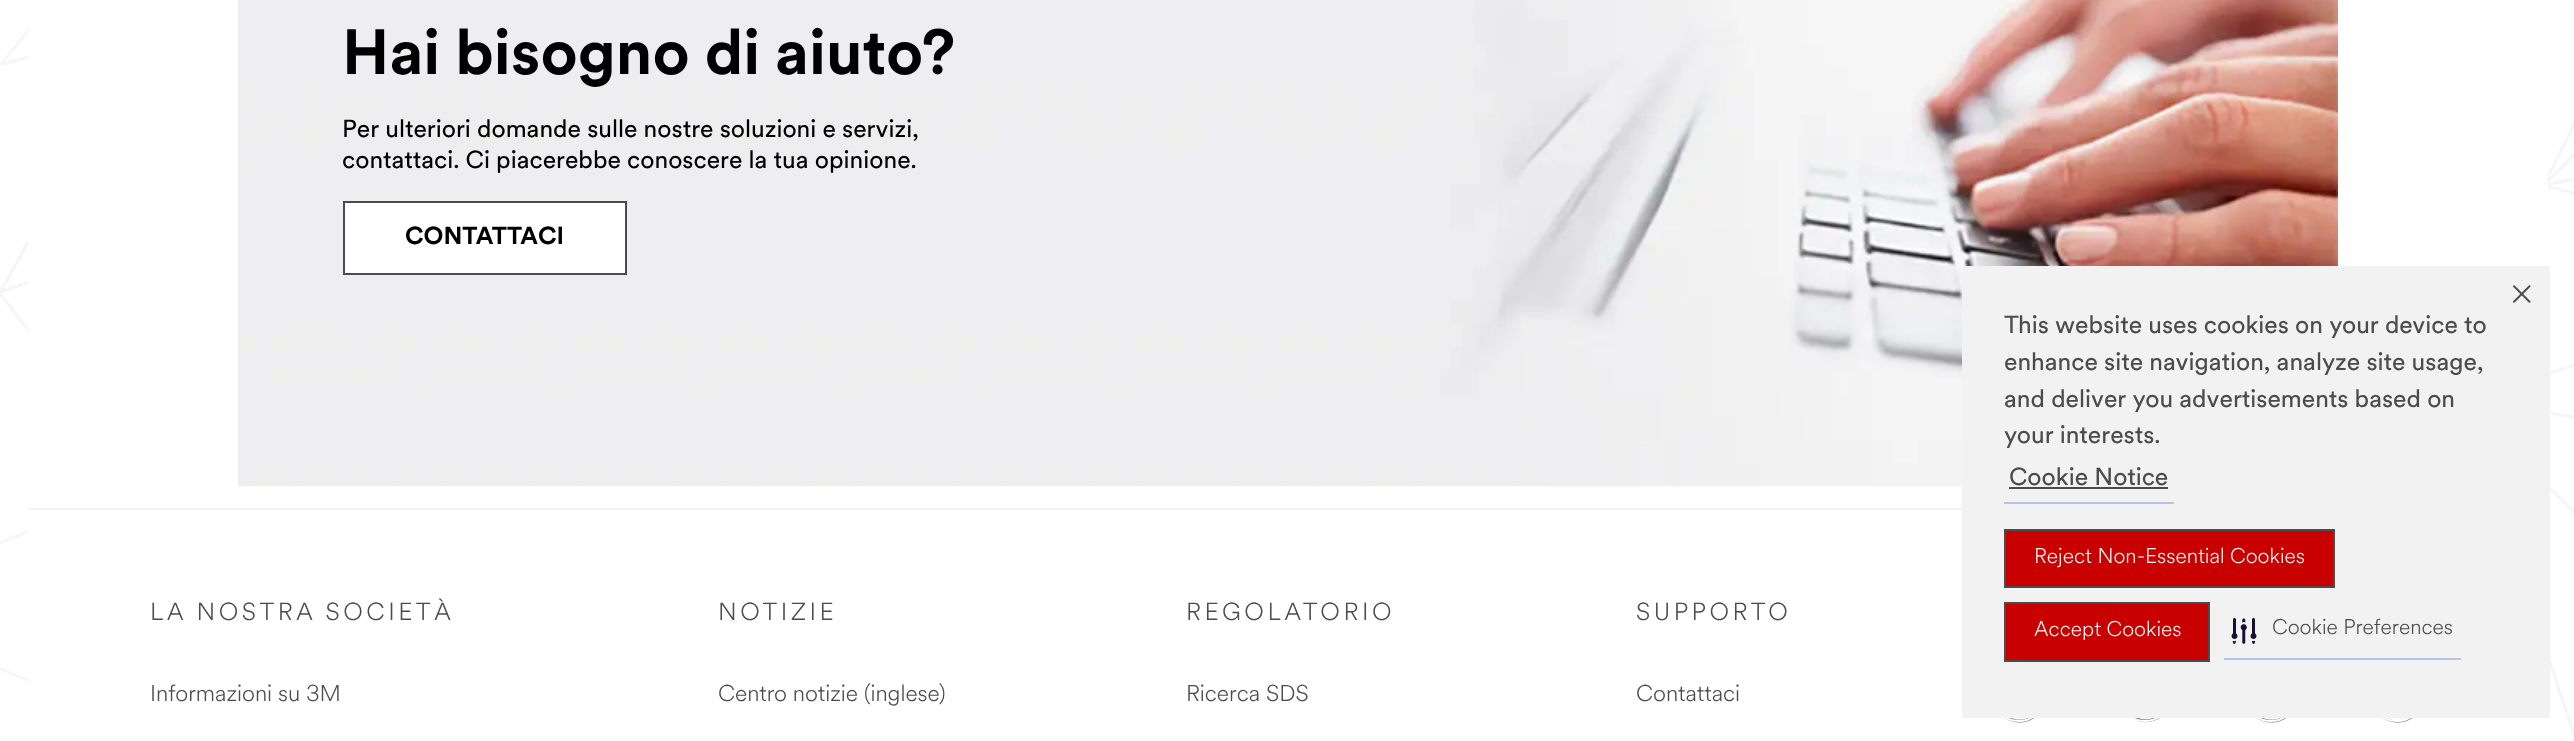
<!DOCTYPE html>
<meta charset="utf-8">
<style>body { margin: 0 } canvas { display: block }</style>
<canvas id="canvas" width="2574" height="741"></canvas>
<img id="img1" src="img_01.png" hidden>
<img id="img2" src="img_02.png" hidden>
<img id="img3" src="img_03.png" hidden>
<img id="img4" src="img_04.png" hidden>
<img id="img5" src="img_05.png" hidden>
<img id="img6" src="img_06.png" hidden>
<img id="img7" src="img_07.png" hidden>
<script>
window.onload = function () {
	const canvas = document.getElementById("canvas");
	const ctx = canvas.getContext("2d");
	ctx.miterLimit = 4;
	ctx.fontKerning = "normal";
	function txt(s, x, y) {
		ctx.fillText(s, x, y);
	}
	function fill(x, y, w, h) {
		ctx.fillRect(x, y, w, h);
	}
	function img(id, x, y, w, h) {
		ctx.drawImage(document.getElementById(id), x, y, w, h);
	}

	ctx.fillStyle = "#FFFFFF";
	fill(0, 0, 2574, 741);
	img("img1", 0, 27, 2574, 714);
	fill(28, 27, 2520, 714);
	img("img2", 238, 0, 2100, 487);
	ctx.beginPath();
	ctx.rect(344, 202, 282, 72);
	ctx.fill();
	ctx.strokeStyle = "#4B4B4B";
	ctx.lineWidth = 2;
	ctx.stroke();
	ctx.fillStyle = "#F2F2F2";
	fill(28, 508, 1934, 2);
	img("img3", 2005, 718, 29, 5);
	ctx.fillStyle = "#FFFFFF";
	ctx.beginPath();
	ctx.moveTo(2019, 722);
	ctx.bezierCurveTo(1986, 722, 1986, 671, 2019, 671);
	ctx.bezierCurveTo(2025, 671, 2030, 673, 2035, 676);
	ctx.bezierCurveTo(2054, 691, 2044, 722, 2019, 722);
	ctx.closePath();
	ctx.moveTo(2019, 673);
	ctx.bezierCurveTo(1988, 673, 1989, 720, 2019, 720);
	ctx.bezierCurveTo(2050, 720, 2051, 673, 2019, 673);
	ctx.closePath();
	ctx.fill();
	img("img4", 2131, 718, 29, 5);
	ctx.beginPath();
	ctx.moveTo(2145, 722);
	ctx.bezierCurveTo(2112, 722, 2112, 671, 2145, 671);
	ctx.bezierCurveTo(2151, 671, 2156, 673, 2161, 676);
	ctx.bezierCurveTo(2180, 691, 2170, 722, 2145, 722);
	ctx.closePath();
	ctx.moveTo(2145, 673);
	ctx.bezierCurveTo(2114, 673, 2115, 720, 2145, 720);
	ctx.bezierCurveTo(2176, 720, 2177, 673, 2145, 673);
	ctx.closePath();
	ctx.fill();
	img("img3", 2257, 718, 29, 5);
	ctx.beginPath();
	ctx.moveTo(2271, 722);
	ctx.bezierCurveTo(2238, 722, 2238, 671, 2271, 671);
	ctx.bezierCurveTo(2277, 671, 2282, 673, 2287, 676);
	ctx.bezierCurveTo(2306, 691, 2296, 722, 2271, 722);
	ctx.closePath();
	ctx.moveTo(2271, 673);
	ctx.bezierCurveTo(2240, 673, 2241, 720, 2271, 720);
	ctx.bezierCurveTo(2302, 720, 2303, 673, 2271, 673);
	ctx.closePath();
	ctx.fill();
	img("img5", 2382, 718, 31, 5);
	ctx.beginPath();
	ctx.moveTo(2397, 722);
	ctx.bezierCurveTo(2364, 722, 2364, 671, 2397, 671);
	ctx.bezierCurveTo(2403, 671, 2408, 673, 2413, 676);
	ctx.bezierCurveTo(2432, 691, 2422, 722, 2397, 722);
	ctx.closePath();
	ctx.moveTo(2397, 673);
	ctx.bezierCurveTo(2366, 673, 2367, 720, 2397, 720);
	ctx.bezierCurveTo(2428, 720, 2429, 673, 2397, 673);
	ctx.closePath();
	ctx.fill();
	ctx.fillStyle = "#F2F2F2";
	fill(1962, 266, 588, 452);
	ctx.fillStyle = "#B6C2E9";
	fill(2004, 502, 170, 2);
	ctx.fillStyle = "#4B4B4B";
	fill(2009, 487, 159, 2);
	img("img6", 2513, 285, 18, 18);
	ctx.fillStyle = "#C80000";
	ctx.beginPath();
	ctx.rect(2005, 530, 329, 57);
	ctx.fill();
	ctx.stroke();
	ctx.beginPath();
	ctx.rect(2005, 603, 204, 58);
	ctx.fill();
	ctx.stroke();
	ctx.fillStyle = "#B6C2E9";
	fill(2224, 658, 237, 2);
	img("img7", 2231, 618, 26, 26);
	ctx.font = "bold 63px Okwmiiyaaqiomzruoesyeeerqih";
	ctx.fillStyle = "#000000";
	txt("Hai bisogno di aiuto?", 342, 74);
	ctx.font = "24.5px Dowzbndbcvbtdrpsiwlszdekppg";
	txt("Per ulteriori domande sulle nostre soluzioni e servizi,", 342, 137);
	txt("contattaci. Ci piacerebbe conoscere la tua opinione.", 342, 168);
	ctx.font = "bold 24.5px Okwmiiyaaqiomzruoesyeeerqih";
	txt("CONTATTACI", 405, 244);
	ctx.letterSpacing = "3.5px";
	ctx.font = "300 24.5px '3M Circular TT'";
	ctx.fillStyle = "#4B4B4B";
	txt("LA NOSTRA SOCIETÀ", 150, 620);
	ctx.letterSpacing = "0px";
	ctx.font = "300 22.75px '3M Circular TT'";
	txt("Informazioni su 3M", 150, 701);
	ctx.letterSpacing = "3.5px";
	ctx.font = "300 24.5px '3M Circular TT'";
	txt("NOTIZIE", 718, 620);
	ctx.letterSpacing = "0px";
	ctx.font = "300 22.75px '3M Circular TT'";
	txt("Centro notizie (inglese)", 718, 701);
	ctx.letterSpacing = "3.5px";
	ctx.font = "300 24.5px '3M Circular TT'";
	txt("REGOLATORIO", 1186, 620);
	ctx.letterSpacing = "0px";
	ctx.font = "300 22.75px '3M Circular TT'";
	txt("Ricerca SDS", 1186, 701);
	ctx.letterSpacing = "3.5px";
	ctx.font = "300 24.5px '3M Circular TT'";
	txt("SUPPORTO", 1636, 620);
	ctx.letterSpacing = "0px";
	ctx.font = "300 22.75px '3M Circular TT'";
	txt("Contattaci", 1636, 701);
	ctx.font = "24.5px Dowzbndbcvbtdrpsiwlszdekppg";
	txt("This website uses cookies on your device to", 2004, 333);
	txt("enhance site navigation, analyze site usage,", 2004, 370);
	txt("and deliver you advertisements based on", 2004, 407);
	txt("your interests.", 2004, 443);
	txt("Cookie Notice", 2009, 485);
	ctx.font = "300 21px '3M Circular TT'";
	ctx.fillStyle = "#F2F2F2";
	txt("Reject Non-Essential Cookies", 2034, 563);
	txt("Accept Cookies", 2034, 636);
	ctx.fillStyle = "#4B4B4B";
	txt("Cookie Preferences", 2272, 634);
};
</script>
